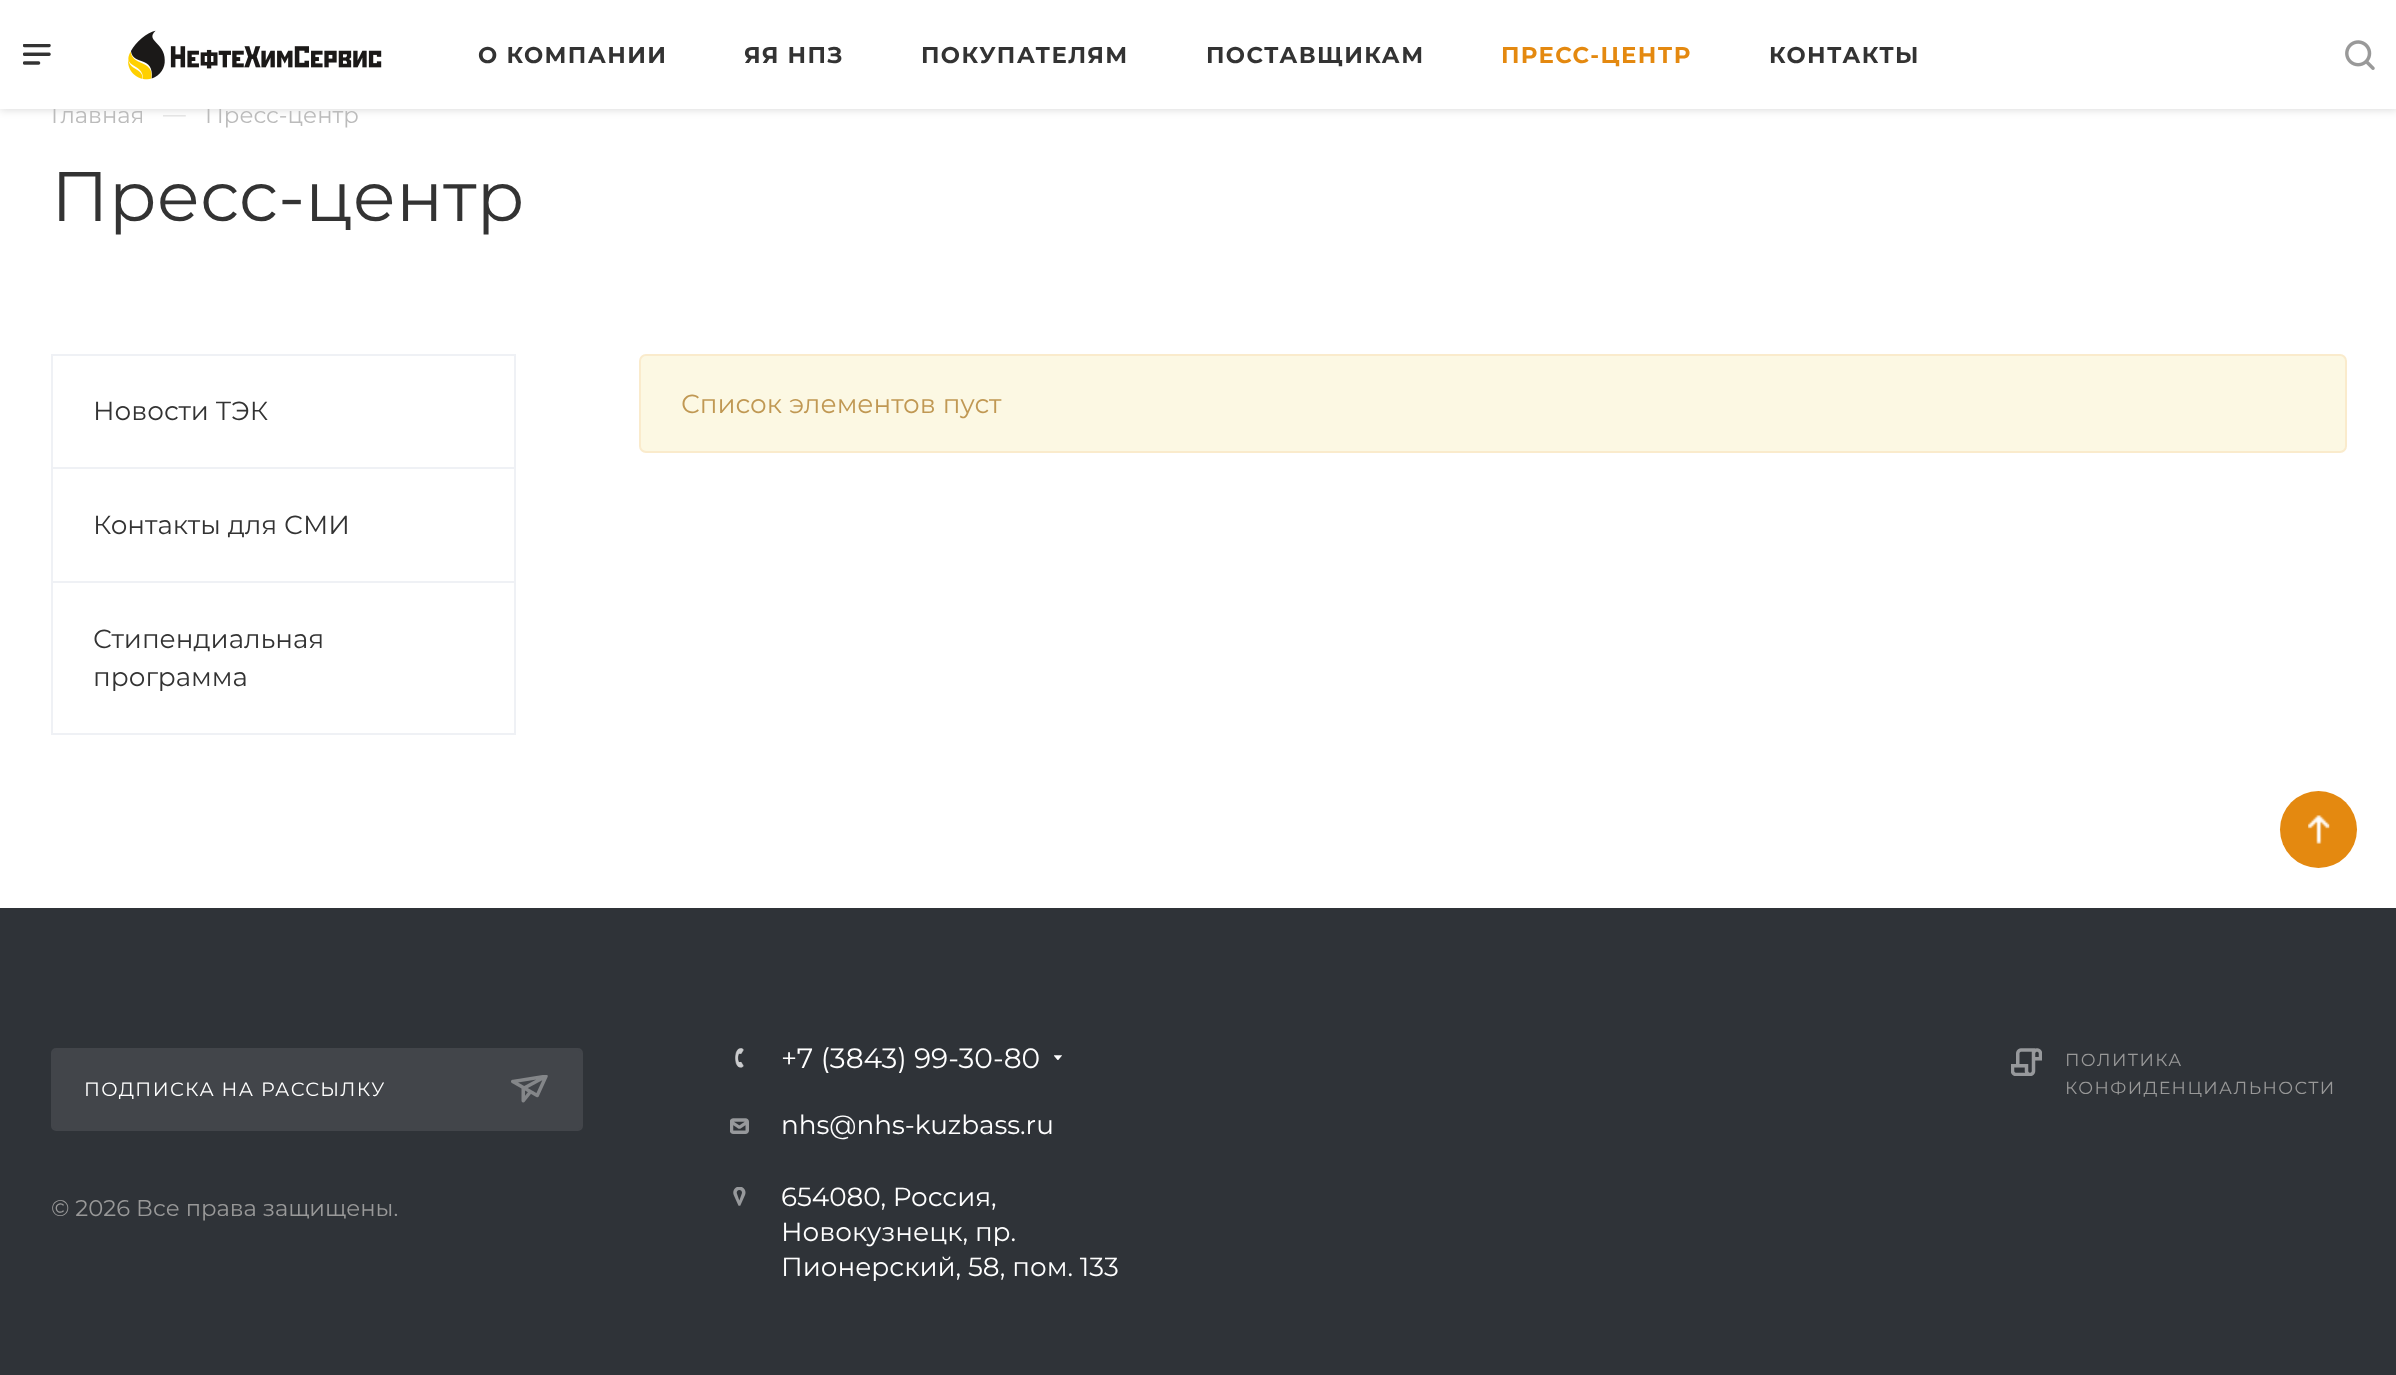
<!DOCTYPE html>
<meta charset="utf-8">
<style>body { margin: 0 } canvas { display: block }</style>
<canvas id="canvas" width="2396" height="1375"></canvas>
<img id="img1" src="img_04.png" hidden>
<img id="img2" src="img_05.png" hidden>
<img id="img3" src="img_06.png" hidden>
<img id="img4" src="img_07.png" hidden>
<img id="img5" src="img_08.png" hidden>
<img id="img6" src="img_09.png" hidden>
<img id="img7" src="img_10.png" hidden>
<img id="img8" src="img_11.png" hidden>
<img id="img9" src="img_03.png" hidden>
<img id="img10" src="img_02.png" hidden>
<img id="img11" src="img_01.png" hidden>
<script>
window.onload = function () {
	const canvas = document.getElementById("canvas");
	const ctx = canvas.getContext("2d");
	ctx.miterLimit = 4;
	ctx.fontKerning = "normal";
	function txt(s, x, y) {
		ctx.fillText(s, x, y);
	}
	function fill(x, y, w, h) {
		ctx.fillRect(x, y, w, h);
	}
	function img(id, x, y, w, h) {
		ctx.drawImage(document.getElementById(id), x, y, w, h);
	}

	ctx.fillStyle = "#FFFFFF";
	fill(0, 0, 2396, 1375);
	ctx.fillStyle = "rgba(0, 0, 0, 0.14)";
	ctx.filter = "blur(4.5px)";
	ctx.beginPath();
	ctx.rect(0, 2, 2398, 108);
	ctx.fill();
	ctx.filter = "none";
	ctx.strokeStyle = "#EFF1F5";
	ctx.lineWidth = 2;
	ctx.strokeRect(52, 355, 463, 379);
	ctx.fillStyle = "#EFF1F5";
	fill(53, 467, 462, 2);
	fill(53, 581, 462, 2);
	ctx.fillStyle = "#FCF8E3";
	ctx.beginPath();
	ctx.roundRect(640, 355, 1706, 97, 6);
	ctx.fill();
	ctx.strokeStyle = "#FAEBCC";
	ctx.stroke();
	ctx.fillStyle = "#E48910";
	ctx.beginPath();
	ctx.arc(2318.5, 829.5, 38.5, 0, Math.PI * 2);
	ctx.fill();
	img("img1", 2308, 815, 22, 29);
	ctx.fillStyle = "#2F3338";
	fill(0, 908, 2396, 467);
	img("img2", 735, 1048, 9, 20);
	img("img3", 735, 1048, 8, 20);
	img("img4", 1054, 1055, 8, 5);
	img("img5", 730, 1118, 19, 16);
	img("img6", 733, 1187, 13, 19);
	img("img7", 2011, 1048, 31, 28);
	ctx.fillStyle = "#42454A";
	ctx.beginPath();
	ctx.roundRect(52, 1049, 530, 81, 4);
	ctx.fill();
	ctx.strokeStyle = "#42454A";
	ctx.stroke();
	img("img8", 511, 1075, 37, 28);
	ctx.font = "22.75px Montserrat";
	ctx.fillStyle = "#BBBBBB";
	txt("Главная", 51, 123);
	ctx.fillStyle = "#DDDDDD";
	txt("—", 163, 122);
	ctx.fillStyle = "#BBBBBB";
	txt("Пресс-центр", 205, 123);
	ctx.fillStyle = "#FFFFFF";
	fill(0, 0, 2396, 109);
	img("img9", 2345, 40, 30, 30);
	ctx.letterSpacing = "1.4px";
	ctx.font = "bold 22.75px Montserrat";
	ctx.fillStyle = "#333333";
	txt("КОНТАКТЫ", 1769, 63);
	ctx.fillStyle = "#E48910";
	txt("ПРЕСС-ЦЕНТР", 1501, 63);
	ctx.fillStyle = "#333333";
	txt("ПОСТАВЩИКАМ", 1206, 63);
	txt("ПОКУПАТЕЛЯМ", 921, 63);
	txt("ЯЯ НПЗ", 744, 63);
	txt("О КОМПАНИИ", 478, 63);
	img("img10", 128, 30, 254, 50);
	img("img11", 23, 44, 28, 21);
	ctx.letterSpacing = "0px";
	ctx.font = "70px Montserrat";
	txt("Пресс-центр", 51, 221);
	ctx.font = "26.25px Montserrat";
	txt("Новости ТЭК", 93, 420);
	txt("Контакты для СМИ", 93, 534);
	txt("Стипендиальная", 93, 648);
	txt("программа", 93, 686);
	ctx.fillStyle = "#C09853";
	txt("Список элементов пуст", 681, 413);
	ctx.save();
	ctx.beginPath();
	ctx.rect(730, 1045, 332, 28);
	ctx.clip();
	ctx.font = "28px Montserrat";
	ctx.fillStyle = "#FFFFFF";
	txt("+7 (3843) 99-30-80", 781, 1068);
	ctx.restore();
	ctx.fillStyle = "#FFFFFF";
	txt("nhs@nhs-kuzbass.ru", 781, 1134);
	txt("654080, Россия,", 781, 1206);
	txt("Новокузнецк, пр.", 781, 1241);
	txt("Пионерский, 58, пом. 133", 781, 1276);
	ctx.letterSpacing = "1.4px";
	ctx.font = "17.5px Montserrat";
	ctx.fillStyle = "#999999";
	txt("ПОЛИТИКА", 2065, 1066);
	txt("КОНФИДЕНЦИАЛЬНОСТИ", 2065, 1094);
	ctx.font = "19.25px Montserrat";
	ctx.fillStyle = "#FFFFFF";
	txt("ПОДПИСКА НА РАССЫЛКУ", 84, 1096);
	ctx.letterSpacing = "0px";
	ctx.font = "22.75px Montserrat";
	ctx.fillStyle = "#999999";
	txt("© 2026 Все права защищены.", 51, 1216);
};
</script>
